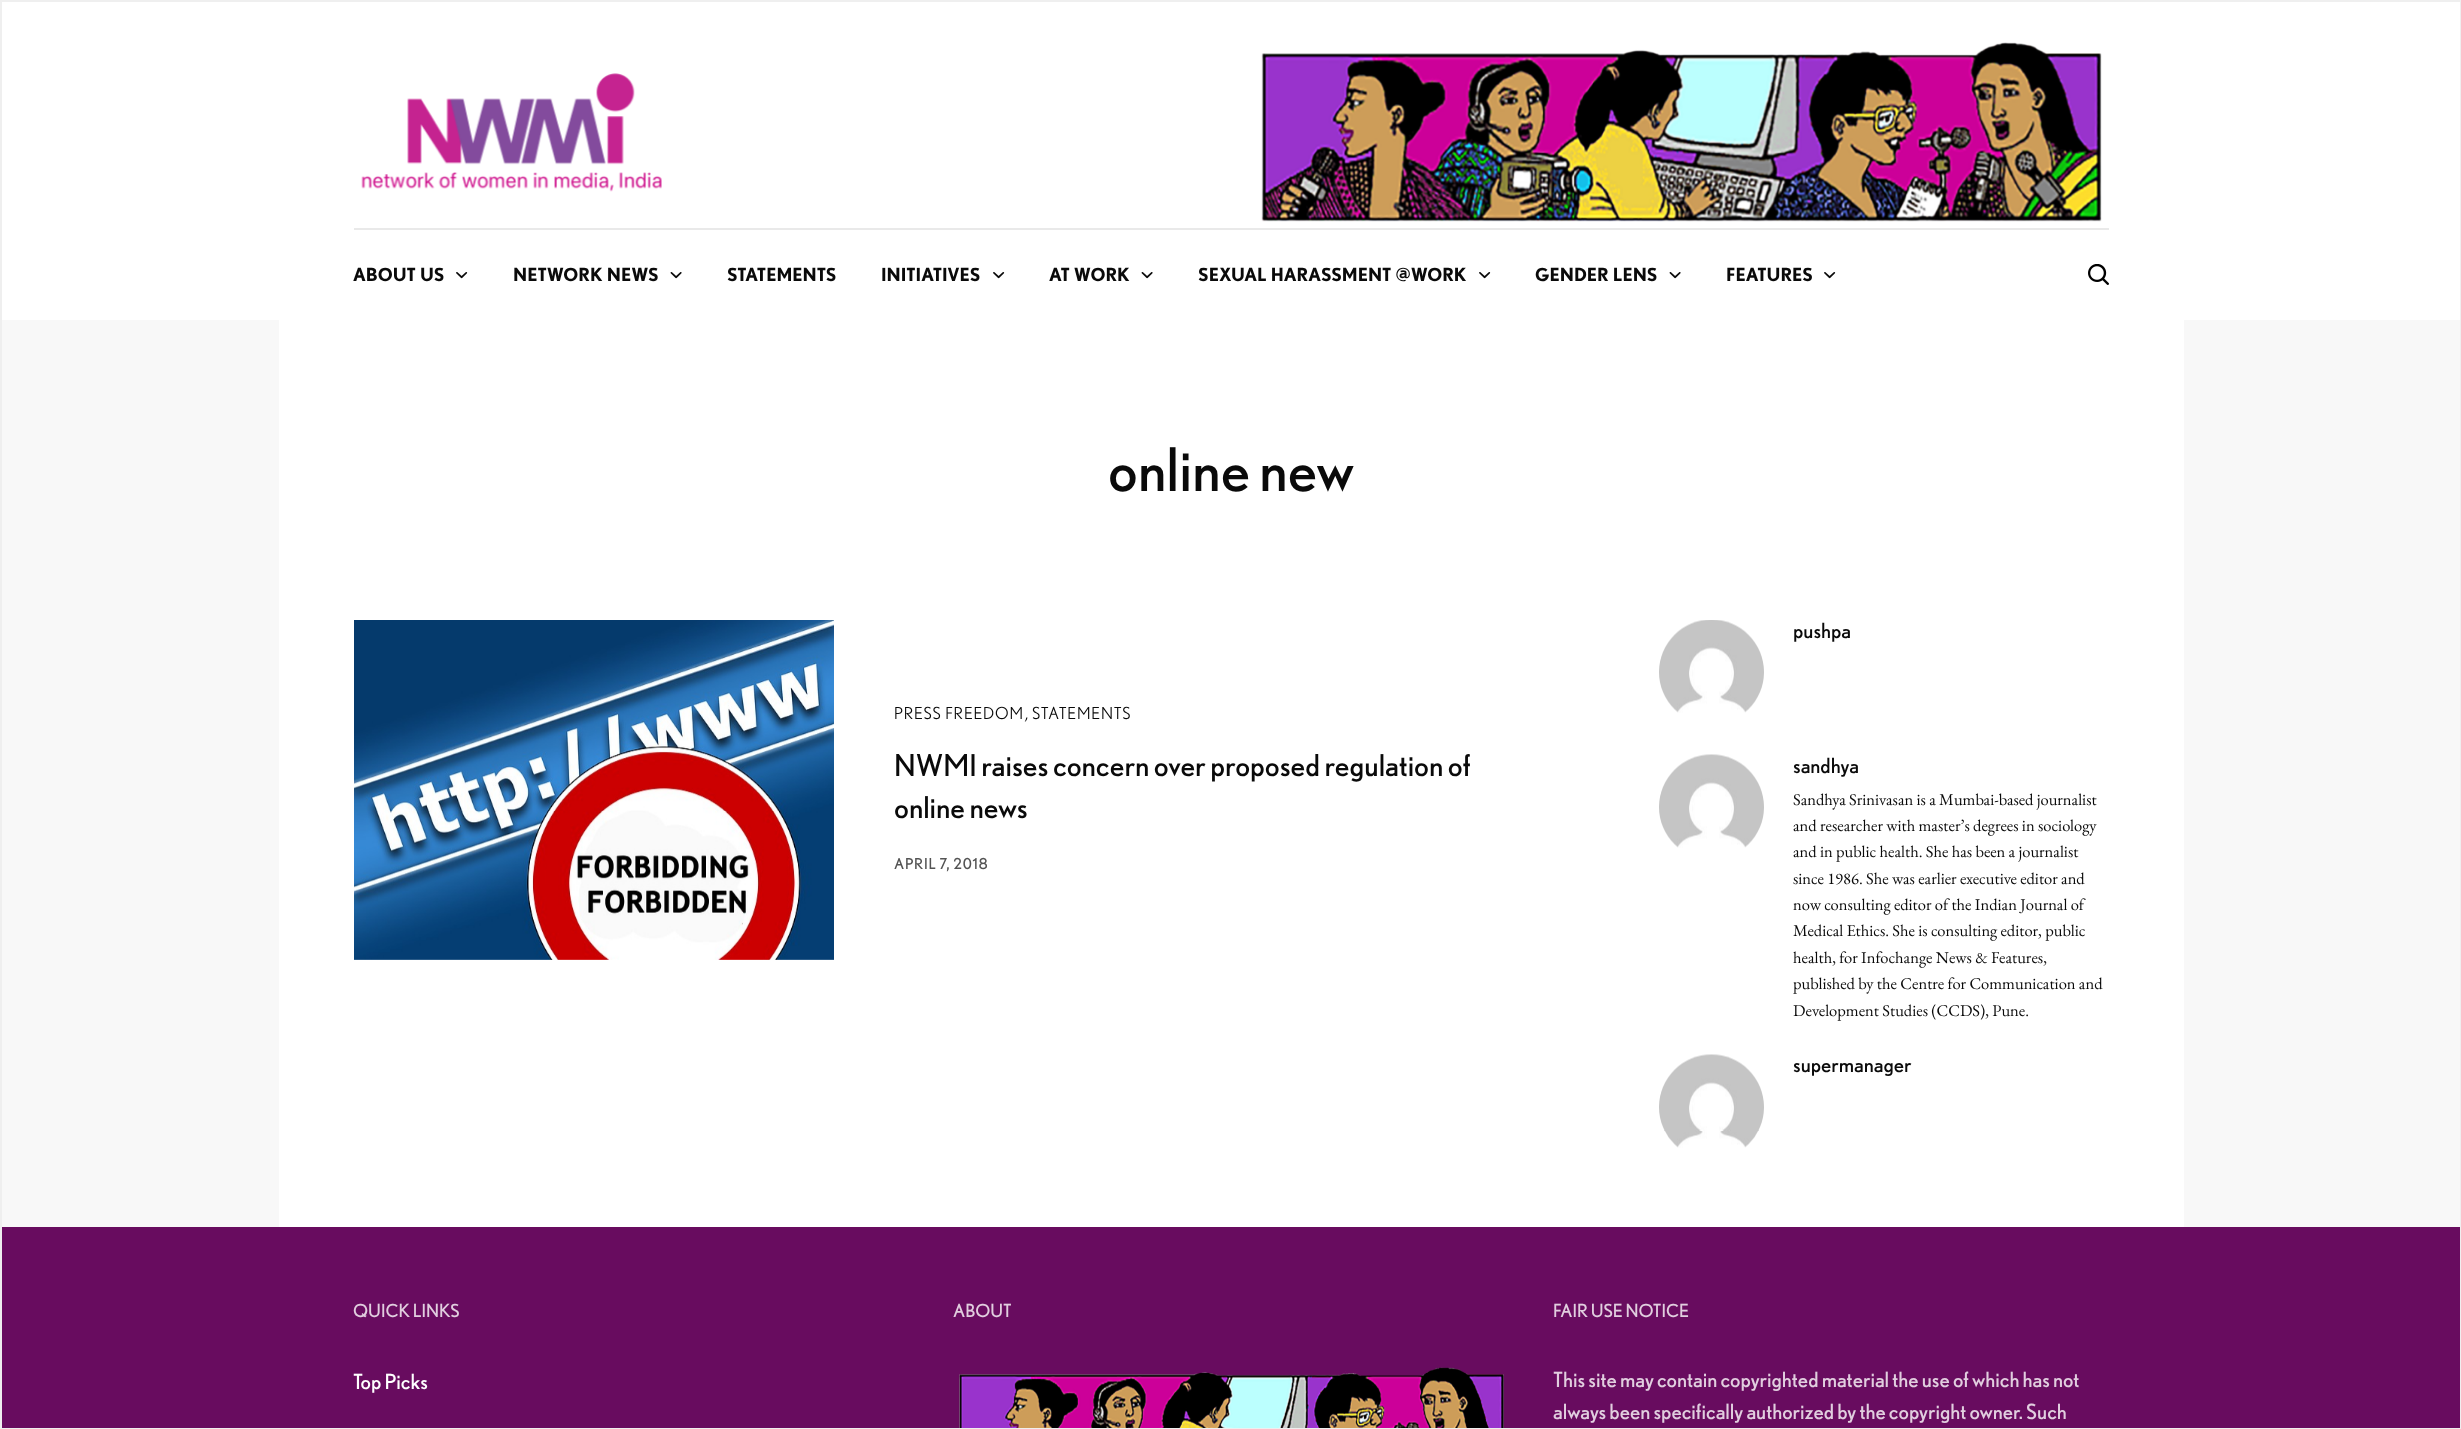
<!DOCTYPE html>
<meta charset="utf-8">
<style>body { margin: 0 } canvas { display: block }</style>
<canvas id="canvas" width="2461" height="1429"></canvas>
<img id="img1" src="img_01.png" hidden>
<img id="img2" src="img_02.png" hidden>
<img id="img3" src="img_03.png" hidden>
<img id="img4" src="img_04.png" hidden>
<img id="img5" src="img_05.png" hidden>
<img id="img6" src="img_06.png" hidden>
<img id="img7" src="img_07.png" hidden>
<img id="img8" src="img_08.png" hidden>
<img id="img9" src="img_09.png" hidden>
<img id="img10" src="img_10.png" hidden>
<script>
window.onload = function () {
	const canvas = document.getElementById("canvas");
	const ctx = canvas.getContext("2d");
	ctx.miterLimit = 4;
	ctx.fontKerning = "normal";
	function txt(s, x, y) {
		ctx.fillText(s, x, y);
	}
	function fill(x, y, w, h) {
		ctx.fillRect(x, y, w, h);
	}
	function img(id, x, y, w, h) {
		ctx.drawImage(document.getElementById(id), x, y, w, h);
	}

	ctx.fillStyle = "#F8F8F8";
	fill(0, 0, 2461, 1429);
	ctx.fillStyle = "#FFFFFF";
	fill(2, 2, 2458, 318);
	img("img1", 361, 73, 301, 119);
	img("img2", 1261, 42, 841, 180);
	ctx.fillStyle = "#E9E9E9";
	fill(354, 228, 1755, 2);
	img("img3", 456, 272, 12, 7);
	img("img4", 670, 272, 12, 7);
	img("img3", 993, 272, 12, 7);
	img("img4", 1141, 272, 12, 7);
	img("img3", 1479, 272, 12, 7);
	img("img4", 1669, 272, 12, 7);
	img("img3", 1824, 272, 12, 7);
	img("img5", 2088, 264, 21, 21);
	ctx.fillStyle = "#FFFFFF";
	fill(279, 320, 1905, 907);
	img("img6", 354, 620, 480, 340);
	img("img7", 1659, 620, 105, 93);
	img("img8", 1659, 754, 105, 94);
	img("img9", 1659, 1054, 105, 94);
	ctx.fillStyle = "#680C5F";
	fill(2, 1227, 2458, 201);
	img("img10", 959, 1367, 545, 61);
	ctx.strokeStyle = "#EFEFEF";
	ctx.lineWidth = 2;
	ctx.strokeRect(1, 1, 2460, 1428);
	ctx.font = "bold 18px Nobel";
	ctx.fillStyle = "#0A0A0A";
	txt("ABOUT US", 353, 281);
	txt("NETWORK NEWS", 513, 281);
	txt("STATEMENTS", 727, 281);
	txt("INITIATIVES", 881, 281);
	txt("AT WORK", 1049, 281);
	txt("SEXUAL HARASSMENT @WORK", 1198, 281);
	txt("GENDER LENS", 1535, 281);
	txt("FEATURES", 1726, 281);
	ctx.font = "60px Nobel";
	txt("online new", 1108, 491);
	ctx.letterSpacing = "0.8px";
	ctx.font = "16.5px 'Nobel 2'";
	txt("PRESS FREEDOM", 894, 719);
	ctx.font = "italic 16.5px Nobel";
	txt(",", 1025, 719);
	ctx.font = "16.5px 'Nobel 2'";
	txt("STATEMENTS", 1032, 719);
	ctx.letterSpacing = "0px";
	ctx.font = "30px Nobel";
	txt("NWMI raises concern over proposed regulation of", 894, 776);
	txt("online news", 894, 818);
	ctx.letterSpacing = "0.75px";
	ctx.font = "15px Nobel";
	ctx.fillStyle = "#545454";
	txt("APRIL 7, 2018", 894, 869);
	ctx.letterSpacing = "0px";
	ctx.font = "21px Nobel";
	ctx.fillStyle = "#0A0A0A";
	txt("pushpa", 1793, 638);
	txt("sandhya", 1793, 773);
	ctx.font = "16.5px EB Garamond";
	txt("Sandhya Srinivasan is a Mumbai-based journalist", 1793, 805);
	txt("and researcher with master’s degrees in sociology", 1793, 831);
	txt("and in public health. She has been a journalist", 1793, 857);
	txt("since 1986. She was earlier executive editor and", 1793, 884);
	txt("now consulting editor of the Indian Journal of", 1793, 910);
	txt("Medical Ethics. She is consulting editor, public", 1793, 936);
	txt("health, for Infochange News & Features,", 1793, 963);
	txt("published by the Centre for Communication and", 1793, 989);
	txt("Development Studies (CCDS), Pune.", 1793, 1016);
	ctx.font = "21px Nobel";
	txt("supermanager", 1793, 1072);
	ctx.font = "18px Nobel";
	ctx.fillStyle = "#E1CEDF";
	txt("QUICK LINKS", 353, 1317);
	ctx.font = "21px Nobel";
	ctx.fillStyle = "#FFFFFF";
	txt("Top Picks", 353, 1389);
	ctx.font = "18px Nobel";
	ctx.fillStyle = "#E1CEDF";
	txt("ABOUT", 953, 1317);
	txt("FAIR USE NOTICE", 1553, 1317);
	ctx.font = "21px Nobel";
	txt("This site may contain copyrighted material the use of which has not", 1553, 1387);
	txt("always been specifically authorized by the copyright owner. Such", 1553, 1419);
};
</script>
